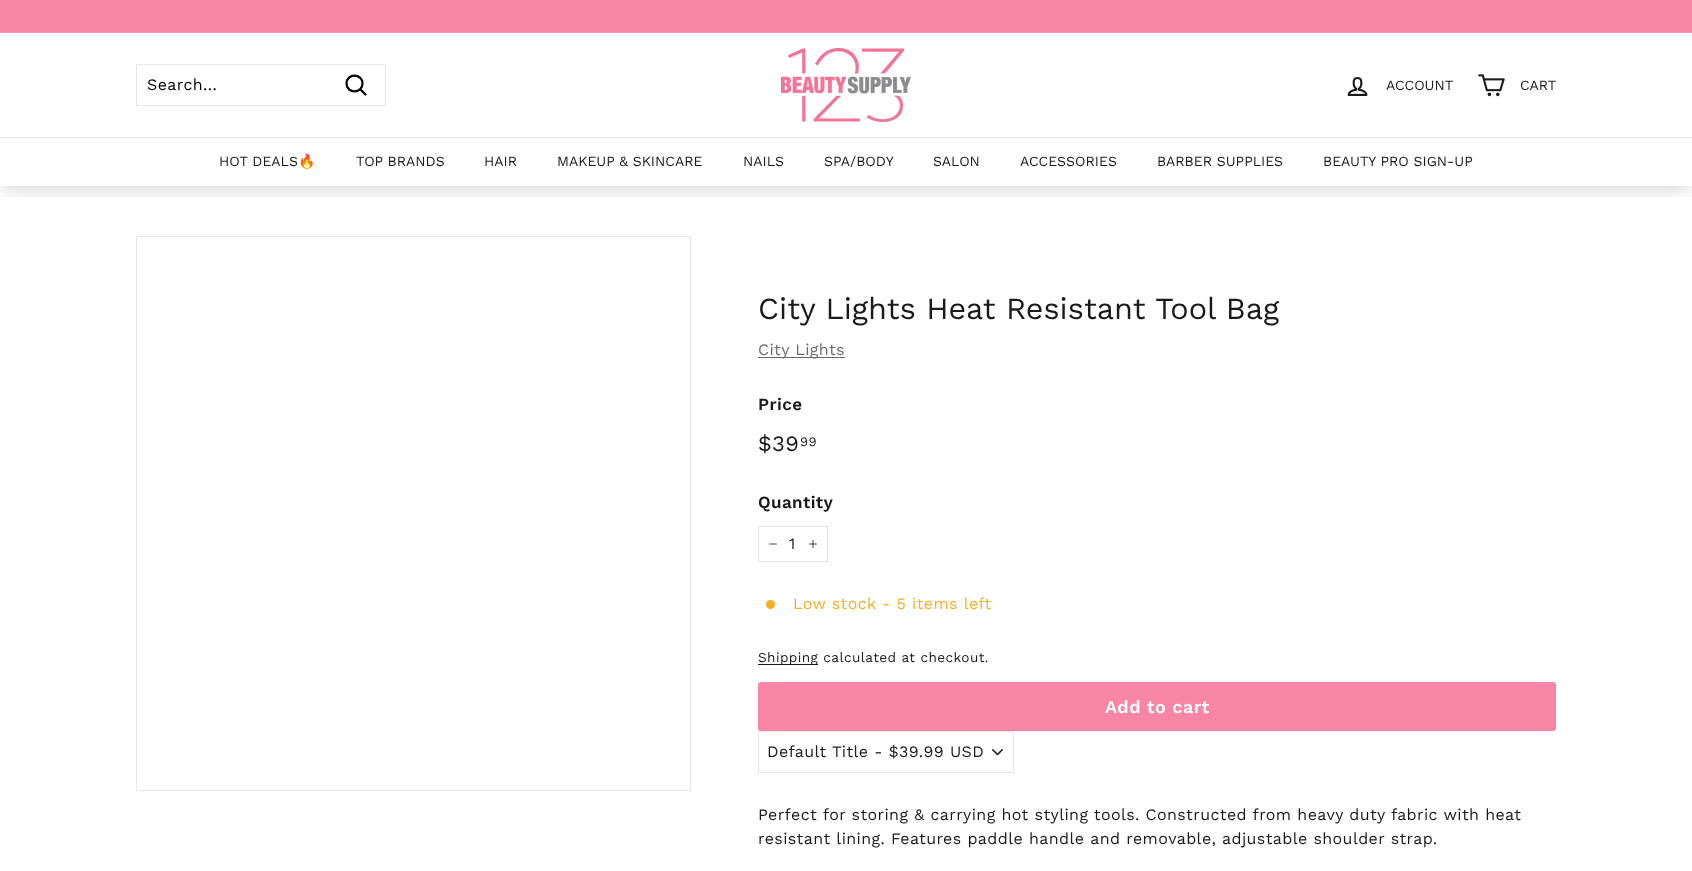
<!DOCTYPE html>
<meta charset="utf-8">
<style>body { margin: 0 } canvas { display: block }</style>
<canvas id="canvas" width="1692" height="871"></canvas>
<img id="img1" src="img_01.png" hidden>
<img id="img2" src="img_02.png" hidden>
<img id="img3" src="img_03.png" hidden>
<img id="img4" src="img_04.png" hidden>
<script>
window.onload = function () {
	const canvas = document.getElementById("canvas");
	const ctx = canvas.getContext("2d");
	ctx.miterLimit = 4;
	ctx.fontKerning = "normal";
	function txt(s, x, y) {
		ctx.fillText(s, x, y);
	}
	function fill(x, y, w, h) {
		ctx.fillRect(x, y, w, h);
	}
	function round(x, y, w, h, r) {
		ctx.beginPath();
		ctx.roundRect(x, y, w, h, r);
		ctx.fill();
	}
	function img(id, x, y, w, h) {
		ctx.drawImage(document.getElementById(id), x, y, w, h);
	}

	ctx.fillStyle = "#FFFFFF";
	fill(0, 0, 1692, 871);
	ctx.save();
	ctx.beginPath();
	ctx.rect(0, 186, 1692, 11);
	ctx.clip();
	ctx.fillStyle = "rgba(0, 0, 0, 0.1)";
	ctx.filter = "blur(12.5px)";
	ctx.beginPath();
	ctx.rect(0, 33, 1692, 153);
	ctx.fill();
	ctx.filter = "none";
	ctx.restore();
	ctx.fillStyle = "#F985A4";
	fill(0, 0, 1692, 32);
	ctx.fillStyle = "#FA97B2";
	fill(0, 32, 1692, 1);
	ctx.save();
	ctx.beginPath();
	ctx.rect(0, 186, 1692, 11);
	ctx.clip();
	ctx.fillStyle = "rgba(0, 0, 0, 0.1)";
	ctx.filter = "blur(12.5px)";
	ctx.beginPath();
	ctx.rect(0, 137, 1692, 49);
	ctx.fill();
	ctx.filter = "none";
	ctx.restore();
	ctx.fillStyle = "#FFFFFF";
	fill(0, 121, 1692, 16);
	ctx.strokeStyle = "#E7E7E7";
	ctx.strokeRect(136.5, 64.5, 249, 41);
	ctx.beginPath();
	ctx.moveTo(362.5, 83.5);
	ctx.bezierCurveTo(362.5, 94, 346.5, 94, 346.5, 83.5);
	ctx.bezierCurveTo(346.5, 73, 362.5, 73, 362.5, 83.5);
	ctx.closePath();
	ctx.moveTo(365.5, 94.5);
	ctx.lineTo(360.5, 89.5);
	ctx.strokeStyle = "#000000";
	ctx.lineWidth = 2.2;
	ctx.lineCap = "round";
	ctx.lineJoin = "round";
	ctx.stroke();
	img("img1", 781, 48, 130, 74);
	img("img2", 1347, 77, 21, 19);
	img("img3", 1478, 74, 27, 23);
	ctx.fillStyle = "#E8E8E8";
	fill(0, 137, 1692, 1);
	ctx.strokeStyle = "#E7E7E7";
	ctx.lineWidth = 1;
	ctx.lineJoin = "miter";
	ctx.strokeRect(136.5, 236.5, 554, 554);
	ctx.fillStyle = "#6A6A6A";
	fill(758, 357, 87, 1);
	ctx.strokeRect(758.5, 526.5, 69, 35);
	ctx.beginPath();
	ctx.moveTo(776.5, 544);
	ctx.lineTo(769.5, 544);
	ctx.moveTo(813, 540.5);
	ctx.lineTo(813, 547.5);
	ctx.moveTo(816.5, 544);
	ctx.lineTo(809.5, 544);
	ctx.strokeStyle = "#1A1A1A";
	ctx.lineWidth = 0.8;
	ctx.lineJoin = "round";
	ctx.stroke();
	ctx.fillStyle = "#F4AF29";
	ctx.beginPath();
	ctx.arc(770.5, 604.5, 4.5, 0, Math.PI * 2);
	ctx.fill();
	ctx.fillStyle = "#1A1A1A";
	fill(758, 664, 60, 1);
	ctx.fillStyle = "#F985A4";
	round(758, 682, 798, 49, 3);
	img("img4", 992, 749, 11, 7);
	ctx.strokeStyle = "#E7E7E7";
	ctx.lineWidth = 1;
	ctx.lineJoin = "miter";
	ctx.strokeRect(758.5, 731.5, 255, 41);
	ctx.letterSpacing = "0.4px";
	ctx.font = "16px Work Sans";
	ctx.fillStyle = "#000000";
	txt("Search...", 147, 90);
	ctx.letterSpacing = "0px";
	ctx.font = "14px Work Sans";
	ctx.fillStyle = "#1A1A1A";
	txt("ACCOUNT", 1386, 90);
	txt("CART", 1520, 90);
	txt("HOT DEALS", 219, 166);
	ctx.font = "14px Noto Color Emoji";
	txt("🔥", 298, 166);
	ctx.font = "14px Work Sans";
	txt("TOP BRANDS", 356, 166);
	txt("HAIR", 484, 166);
	txt("MAKEUP & SKINCARE", 557, 166);
	txt("NAILS", 743, 166);
	txt("SPA/BODY", 824, 166);
	txt("SALON", 933, 166);
	txt("ACCESSORIES", 1020, 166);
	txt("BARBER SUPPLIES", 1157, 166);
	txt("BEAUTY PRO SIGN-UP", 1323, 166);
	ctx.font = "30.6px Work Sans";
	txt("City Lights Heat Resistant Tool Bag", 758, 319);
	ctx.letterSpacing = "0.4px";
	ctx.font = "16px Work Sans";
	ctx.fillStyle = "#6A6A6A";
	txt("City Lights", 758, 355);
	ctx.font = "600 17px Work Sans";
	ctx.fillStyle = "#1A1A1A";
	txt("Price", 758, 410);
	ctx.font = "22px Work Sans";
	txt("$39", 758, 451);
	ctx.font = "13px Work Sans";
	txt("99", 800, 446);
	ctx.font = "600 17px Work Sans";
	txt("Quantity", 758, 508);
	ctx.font = "16px Work Sans";
	txt("1", 789, 549);
	ctx.fillStyle = "#F4AF29";
	txt("Low stock - 5 items left", 793, 609);
	ctx.font = "13.6px Work Sans";
	ctx.fillStyle = "#1A1A1A";
	txt("Shipping calculated at checkout.", 758, 662);
	ctx.letterSpacing = "0.5px";
	ctx.font = "600 18px Work Sans";
	ctx.fillStyle = "#FFFFFF";
	txt("Add to cart", 1105, 713);
	ctx.letterSpacing = "0.4px";
	ctx.font = "16px Work Sans";
	ctx.fillStyle = "#1A1A1A";
	txt("Default Title - $39.99 USD", 767, 757);
	txt("Perfect for storing & carrying hot styling tools. Constructed from heavy duty fabric with heat", 758, 820);
	txt("resistant lining. Features paddle handle and removable, adjustable shoulder strap.", 758, 844);
};
</script>
